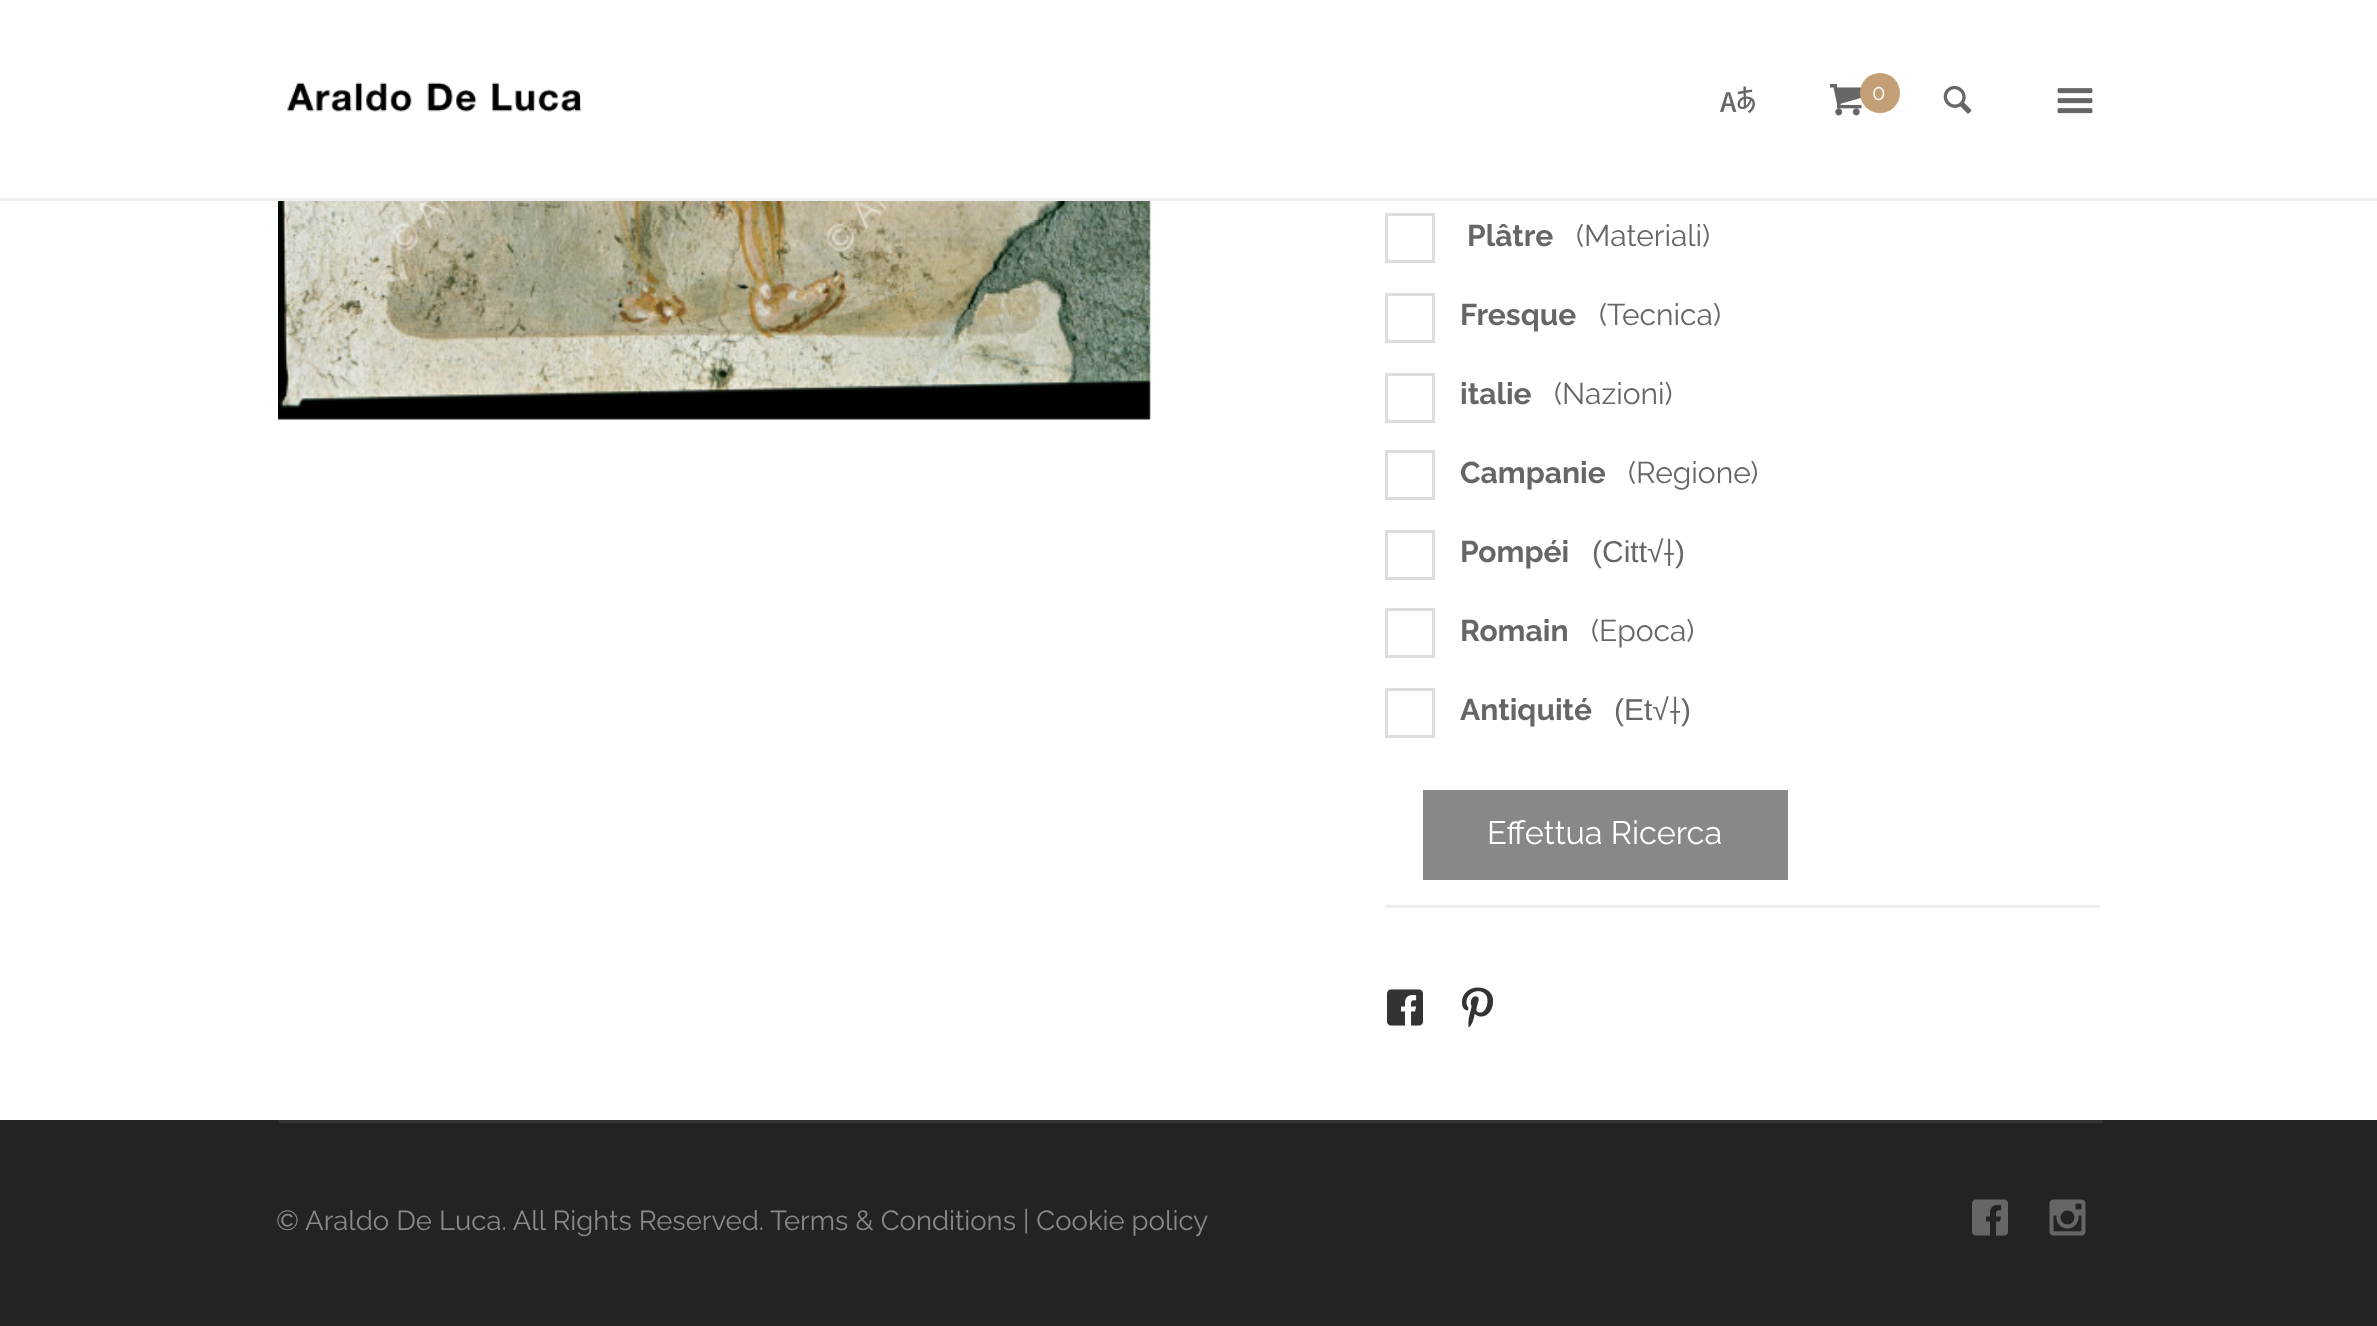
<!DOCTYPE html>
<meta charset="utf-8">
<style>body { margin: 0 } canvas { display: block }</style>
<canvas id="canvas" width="2377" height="1326"></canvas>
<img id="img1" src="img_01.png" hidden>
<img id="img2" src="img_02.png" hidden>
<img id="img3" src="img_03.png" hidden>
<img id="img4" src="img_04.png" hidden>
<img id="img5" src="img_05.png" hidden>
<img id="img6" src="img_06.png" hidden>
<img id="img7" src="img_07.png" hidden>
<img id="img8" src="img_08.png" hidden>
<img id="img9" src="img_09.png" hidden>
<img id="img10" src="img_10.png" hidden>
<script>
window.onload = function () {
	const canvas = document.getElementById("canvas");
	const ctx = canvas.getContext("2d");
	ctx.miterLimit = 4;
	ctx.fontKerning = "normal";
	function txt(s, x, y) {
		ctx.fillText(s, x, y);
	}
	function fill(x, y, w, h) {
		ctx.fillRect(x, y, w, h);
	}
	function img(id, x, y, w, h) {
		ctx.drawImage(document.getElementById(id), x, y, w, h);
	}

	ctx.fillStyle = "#FFFFFF";
	fill(0, 0, 2377, 1326);
	ctx.fillStyle = "#EEEEEE";
	fill(0, 198, 2377, 3);
	img("img1", 287, 82, 295, 30);
	img("img2", 1720, 86, 35, 27);
	img("img3", 1830, 83, 32, 33);
	ctx.fillStyle = "#C39F76";
	ctx.beginPath();
	ctx.arc(1880, 93, 20, 0, Math.PI * 2);
	ctx.fill();
	img("img4", 1943, 85, 29, 29);
	img("img5", 2057, 88, 36, 26);
	img("img6", 278, 201, 873, 219);
	ctx.strokeStyle = "#DDDDDD";
	ctx.lineWidth = 3;
	ctx.strokeRect(1386.5, 214.5, 47, 47);
	ctx.strokeRect(1386.5, 294.5, 47, 47);
	ctx.strokeRect(1386.5, 374.5, 47, 47);
	ctx.strokeRect(1386.5, 451.5, 47, 47);
	ctx.strokeRect(1386.5, 531.5, 47, 47);
	ctx.strokeRect(1386.5, 609.5, 47, 47);
	ctx.strokeRect(1386.5, 689.5, 47, 47);
	ctx.fillStyle = "#888888";
	fill(1423, 790, 365, 90);
	ctx.fillStyle = "#EEEEEE";
	fill(1385, 905, 715, 3);
	img("img7", 1387, 989, 36, 37);
	img("img8", 1461, 987, 33, 41);
	ctx.fillStyle = "#232323";
	fill(0, 1120, 2377, 206);
	ctx.fillStyle = "#333333";
	fill(278, 1120, 1825, 3);
	img("img9", 1972, 1199, 36, 37);
	img("img10", 2049, 1199, 37, 37);
	ctx.font = "22px Raleway";
	ctx.fillStyle = "#FFFFFF";
	txt("0", 1872, 100);
	ctx.font = "bold 30px Raleway";
	ctx.fillStyle = "#666666";
	txt("Plâtre", 1467, 246);
	ctx.font = "30px Raleway";
	txt("(Materiali)", 1576, 246);
	ctx.font = "bold 30px Raleway";
	txt("Fresque", 1460, 325);
	ctx.font = "30px Raleway";
	txt("(Tecnica)", 1599, 325);
	ctx.font = "bold 30px Raleway";
	txt("italie", 1460, 404);
	ctx.font = "30px Raleway";
	txt("(Nazioni)", 1554, 404);
	ctx.font = "bold 30px Raleway";
	txt("Campanie", 1460, 483);
	ctx.font = "30px Raleway";
	txt("(Regione)", 1628, 483);
	ctx.font = "bold 30px Raleway";
	txt("Pompéi", 1460, 562);
	ctx.font = "30px Liberation Sans";
	txt("(Citt√", 1592, 562);
	ctx.font = "30px Raleway";
	txt("†", 1663, 562);
	ctx.font = "30px Liberation Sans";
	txt(")", 1675, 562);
	ctx.font = "bold 30px Raleway";
	txt("Romain", 1460, 641);
	ctx.font = "30px Raleway";
	txt("(Epoca)", 1591, 641);
	ctx.font = "bold 30px Raleway";
	txt("Antiquité", 1460, 720);
	ctx.font = "30px Liberation Sans";
	txt("(Et√", 1614, 720);
	ctx.font = "30px Raleway";
	txt("†", 1669, 720);
	ctx.font = "30px Liberation Sans";
	txt(")", 1681, 720);
	ctx.font = "32.5px Raleway";
	ctx.fillStyle = "#FFFFFF";
	txt("Effettua Ricerca", 1487, 844);
	ctx.font = "27.5px Raleway";
	ctx.fillStyle = "#898989";
	txt("© Araldo De Luca. All Rights Reserved. Terms & Conditions | Cookie policy", 276, 1230);
};
</script>
